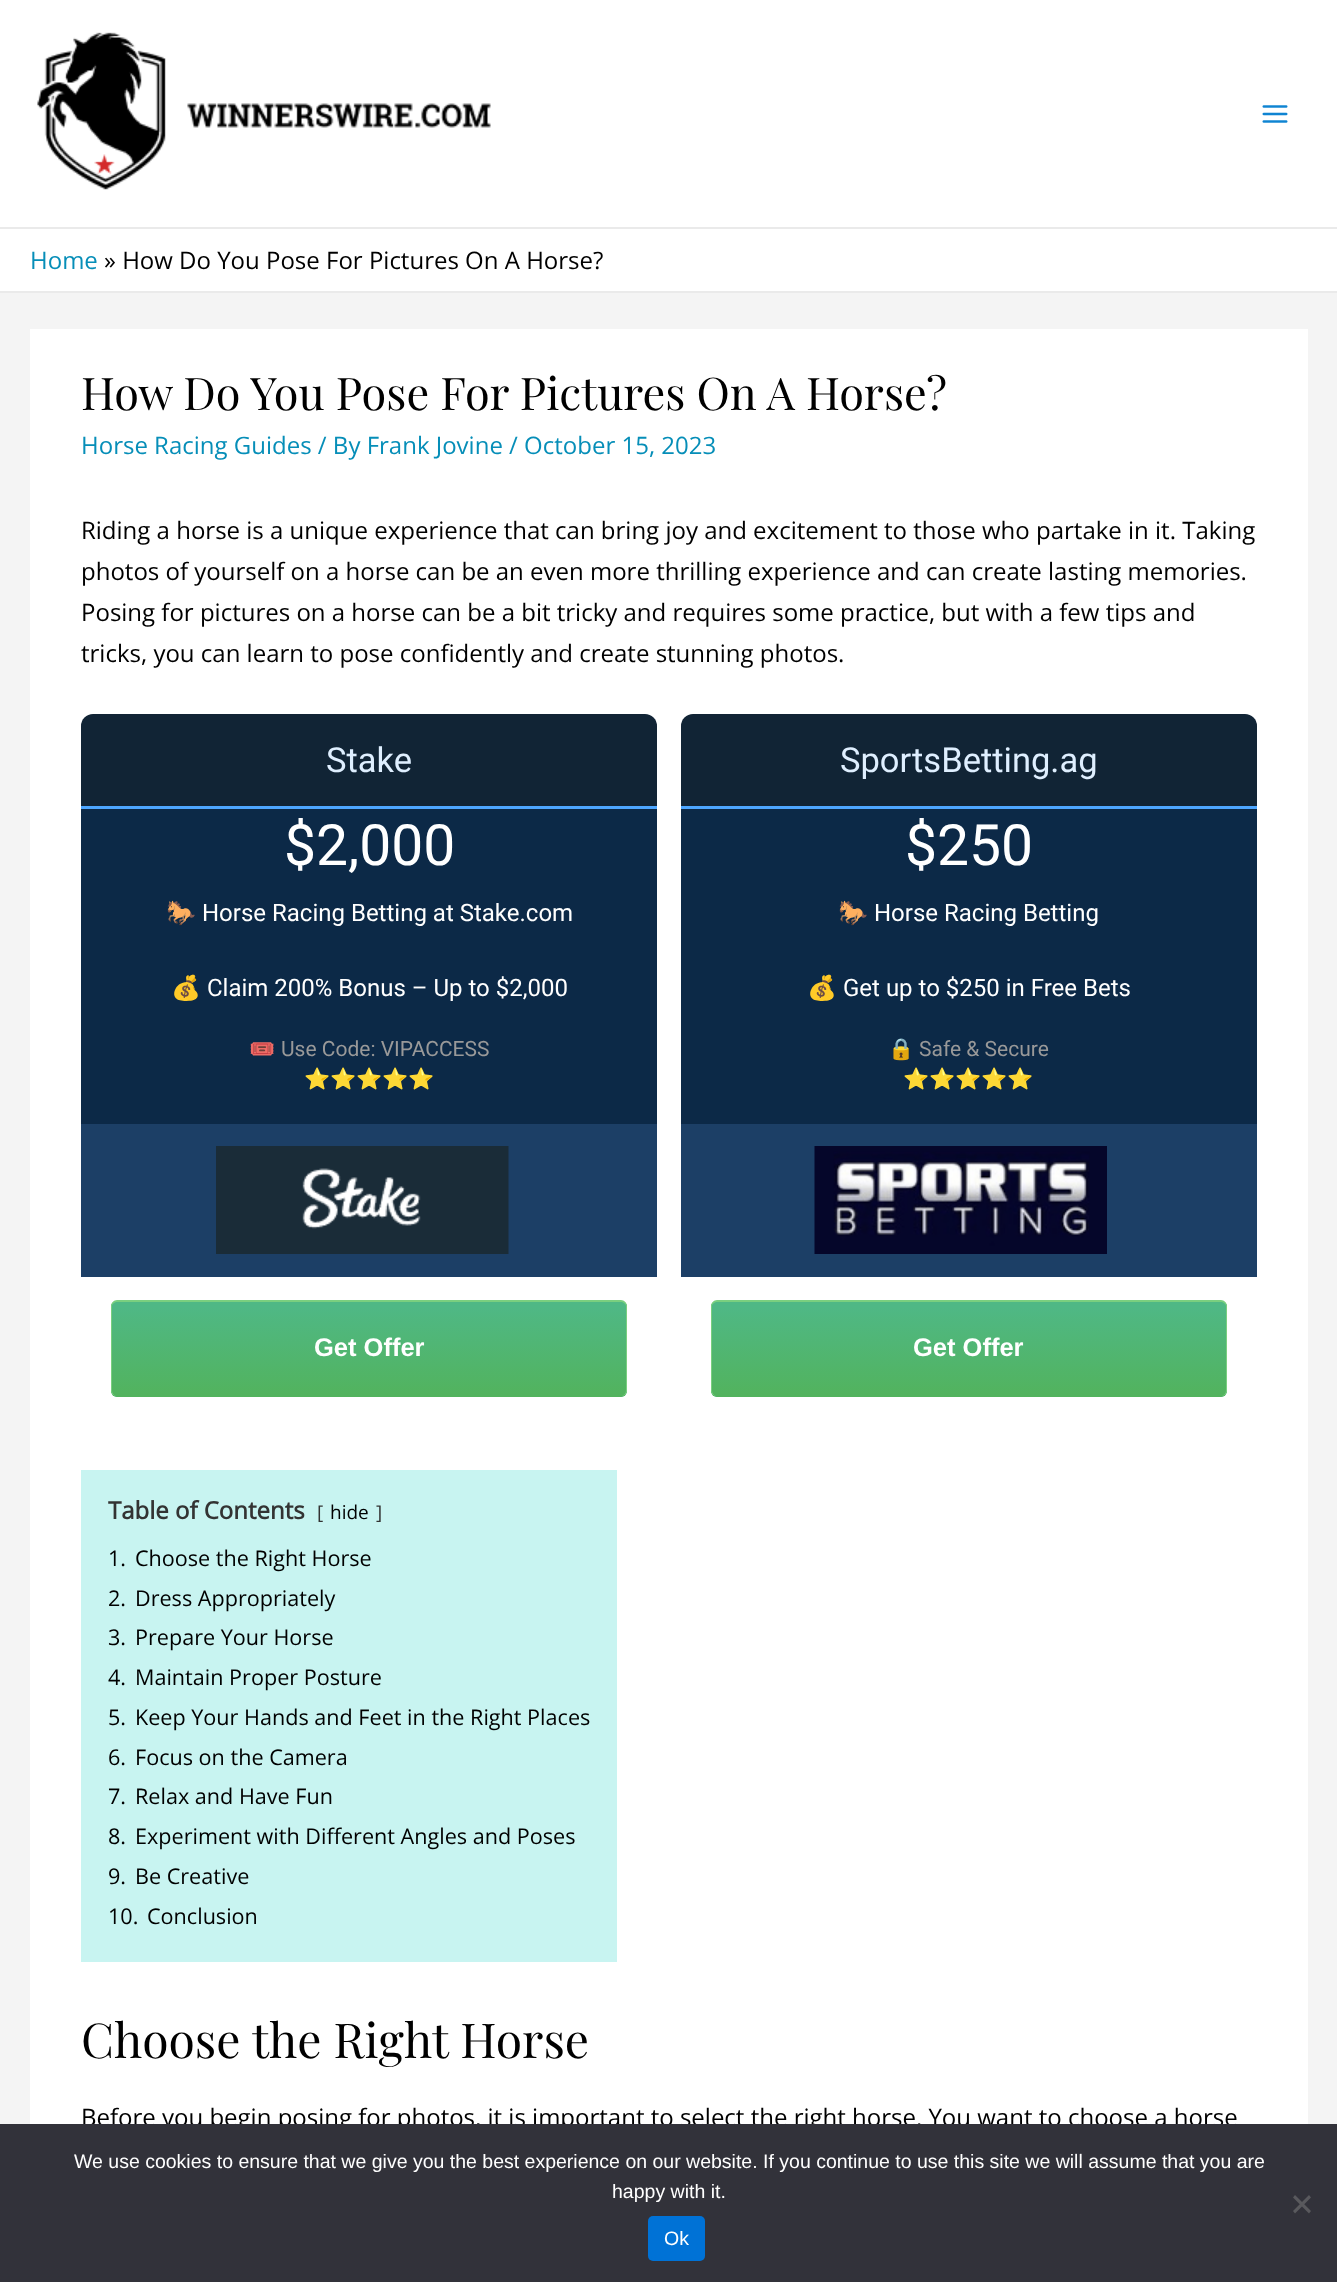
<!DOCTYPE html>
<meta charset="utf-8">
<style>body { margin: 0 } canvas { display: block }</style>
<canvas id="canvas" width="1337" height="2282"></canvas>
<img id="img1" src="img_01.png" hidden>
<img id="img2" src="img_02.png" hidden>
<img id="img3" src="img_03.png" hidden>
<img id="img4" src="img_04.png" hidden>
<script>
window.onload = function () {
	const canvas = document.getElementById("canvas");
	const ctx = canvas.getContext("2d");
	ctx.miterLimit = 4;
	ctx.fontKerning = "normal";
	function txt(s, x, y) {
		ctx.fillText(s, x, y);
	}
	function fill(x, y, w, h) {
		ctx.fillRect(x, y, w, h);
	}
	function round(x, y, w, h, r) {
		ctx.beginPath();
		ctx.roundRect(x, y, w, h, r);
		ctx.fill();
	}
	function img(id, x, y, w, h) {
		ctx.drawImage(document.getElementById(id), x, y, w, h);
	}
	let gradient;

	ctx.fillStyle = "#F4F4F4";
	fill(0, 0, 1337, 2282);
	ctx.fillStyle = "#FFFFFF";
	fill(0, 0, 1337, 227);
	ctx.fillStyle = "#EAEAEA";
	fill(0, 227, 1337, 2);
	img("img1", 37, 32, 454, 158);
	img("img2", 1262, 105, 26, 18);
	ctx.fillStyle = "#FFFFFF";
	fill(0, 229, 1337, 62);
	ctx.fillStyle = "#EAEAEA";
	fill(0, 291, 1337, 2);
	ctx.fillStyle = "#FFFFFF";
	fill(30, 329, 1278, 1795);
	ctx.fillStyle = "#112435";
	ctx.beginPath();
	ctx.roundRect(81, 714, 576, 96, [12, 12, 0, 0]);
	ctx.fill();
	ctx.fillStyle = "#0C2947";
	fill(81, 809, 576, 315);
	ctx.fillStyle = "#4DA6FF";
	fill(81, 806, 576, 3);
	ctx.fillStyle = "#1C3F66";
	fill(81, 1124, 576, 153);
	img("img3", 216, 1146, 293, 108);
	ctx.fillStyle = "#4FB885";
	round(111, 1301, 516, 96, 6);
	ctx.save();
	ctx.beginPath();
	ctx.roundRect(111, 1301, 516, 96, 6);
	ctx.clip();
	gradient = ctx.createLinearGradient(369, 1302, 369, 1397);
	gradient.addColorStop(0.05, "#4FB885");
	gradient.addColorStop(1, "#52B35D");
	ctx.fillStyle = gradient;
	ctx.beginPath();
	ctx.roundRect(111, 1302, 516, 95, [0, 0, 6, 6]);
	ctx.fill();
	ctx.restore();
	ctx.fillStyle = "#7ACF7F";
	ctx.beginPath();
	ctx.moveTo(117, 1300);
	ctx.lineTo(621, 1300);
	ctx.bezierCurveTo(624, 1300, 627, 1303, 627, 1306);
	ctx.lineTo(627, 1390);
	ctx.bezierCurveTo(627, 1394, 624, 1396, 621, 1396);
	ctx.lineTo(117, 1396);
	ctx.bezierCurveTo(114, 1396, 111, 1394, 111, 1390);
	ctx.lineTo(111, 1306);
	ctx.bezierCurveTo(111, 1303, 114, 1300, 117, 1300);
	ctx.closePath();
	ctx.moveTo(117, 1302);
	ctx.lineTo(621, 1302);
	ctx.bezierCurveTo(623, 1302, 626, 1304, 626, 1306);
	ctx.lineTo(626, 1390);
	ctx.bezierCurveTo(626, 1394, 623, 1396, 621, 1396);
	ctx.lineTo(117, 1396);
	ctx.bezierCurveTo(115, 1396, 112, 1394, 112, 1390);
	ctx.lineTo(112, 1306);
	ctx.bezierCurveTo(112, 1304, 115, 1302, 117, 1302);
	ctx.closePath();
	ctx.fill("evenodd");
	ctx.fillStyle = "#112435";
	ctx.beginPath();
	ctx.roundRect(681, 714, 576, 96, [12, 12, 0, 0]);
	ctx.fill();
	ctx.fillStyle = "#0C2947";
	fill(681, 809, 576, 315);
	ctx.fillStyle = "#4DA6FF";
	fill(681, 806, 576, 3);
	ctx.fillStyle = "#1C3F66";
	fill(681, 1124, 576, 153);
	img("img4", 814, 1146, 293, 108);
	ctx.fillStyle = "#4FB885";
	round(711, 1301, 516, 96, 6);
	ctx.save();
	ctx.beginPath();
	ctx.roundRect(711, 1301, 516, 96, 6);
	ctx.clip();
	gradient = ctx.createLinearGradient(969, 1302, 969, 1397);
	gradient.addColorStop(0.05, "#4FB885");
	gradient.addColorStop(1, "#52B35D");
	ctx.fillStyle = gradient;
	ctx.beginPath();
	ctx.roundRect(711, 1302, 516, 95, [0, 0, 6, 6]);
	ctx.fill();
	ctx.restore();
	ctx.fillStyle = "#7ACF7F";
	ctx.beginPath();
	ctx.moveTo(717, 1300);
	ctx.lineTo(1221, 1300);
	ctx.bezierCurveTo(1224, 1300, 1227, 1303, 1227, 1306);
	ctx.lineTo(1227, 1390);
	ctx.bezierCurveTo(1227, 1394, 1224, 1396, 1221, 1396);
	ctx.lineTo(717, 1396);
	ctx.bezierCurveTo(714, 1396, 711, 1394, 711, 1390);
	ctx.lineTo(711, 1306);
	ctx.bezierCurveTo(711, 1303, 714, 1300, 717, 1300);
	ctx.closePath();
	ctx.moveTo(717, 1302);
	ctx.lineTo(1221, 1302);
	ctx.bezierCurveTo(1223, 1302, 1226, 1304, 1226, 1306);
	ctx.lineTo(1226, 1390);
	ctx.bezierCurveTo(1226, 1394, 1223, 1396, 1221, 1396);
	ctx.lineTo(717, 1396);
	ctx.bezierCurveTo(715, 1396, 712, 1394, 712, 1390);
	ctx.lineTo(712, 1306);
	ctx.bezierCurveTo(712, 1304, 715, 1302, 717, 1302);
	ctx.closePath();
	ctx.fill("evenodd");
	ctx.fillStyle = "#C8F4F1";
	fill(81, 1470, 536, 492);
	ctx.font = "24px Open Sans";
	ctx.fillStyle = "#068EB8";
	txt("Home", 30, 269);
	ctx.fillStyle = "#000000";
	txt("» How Do You Pose For Pictures On A Horse?", 104, 269);
	ctx.font = "45px Playfair Display";
	txt("How Do You Pose For Pictures On A Horse?", 81, 410);
	ctx.font = "24px Open Sans";
	ctx.fillStyle = "#068EB8";
	txt("Horse Racing Guides / By Frank Jovine / October 15, 2023", 81, 454);
	ctx.fillStyle = "#000000";
	txt("Riding a horse is a unique experience that can bring joy and excitement to those who partake in it. Taking", 81, 539);
	txt("photos of yourself on a horse can be an even more thrilling experience and can create lasting memories.", 81, 580);
	txt("Posing for pictures on a horse can be a bit tricky and requires some practice, but with a few tips and", 81, 621);
	txt("tricks, you can learn to pose confidently and create stunning photos.", 81, 662);
	ctx.font = "34.5px Roboto";
	ctx.fillStyle = "#DFEFFF";
	txt("Stake", 326, 772);
	ctx.font = "57px Roboto";
	ctx.fillStyle = "#FFFFFF";
	txt("$2,000", 284, 865);
	ctx.font = "24px Noto Color Emoji";
	txt("🐎", 166, 921);
	ctx.font = "24px Roboto";
	txt("Horse Racing Betting at Stake.com", 202, 921);
	ctx.font = "24px Noto Color Emoji";
	txt("💰", 171, 996);
	ctx.font = "24px Roboto";
	txt("Claim 200% Bonus – Up to $2,000", 207, 996);
	ctx.font = "21px Noto Color Emoji";
	ctx.fillStyle = "#999999";
	txt("🎟️", 249, 1056);
	ctx.font = "21px Roboto";
	txt("Use Code: VIPACCESS", 281, 1056);
	ctx.font = "21px Noto Color Emoji";
	txt("⭐⭐⭐⭐⭐", 304, 1086);
	ctx.font = "bold 25.5px Liberation Sans";
	ctx.fillStyle = "#FFFFFF";
	txt("Get Offer", 314, 1356);
	ctx.font = "34.5px Roboto";
	ctx.fillStyle = "#DFEFFF";
	txt("SportsBetting.ag", 840, 772);
	ctx.font = "57px Roboto";
	ctx.fillStyle = "#FFFFFF";
	txt("$250", 905, 865);
	ctx.font = "24px Noto Color Emoji";
	txt("🐎", 838, 921);
	ctx.font = "24px Roboto";
	txt("Horse Racing Betting", 874, 921);
	ctx.font = "24px Noto Color Emoji";
	txt("💰", 807, 996);
	ctx.font = "24px Roboto";
	txt("Get up to $250 in Free Bets", 843, 996);
	ctx.font = "21px Noto Color Emoji";
	ctx.fillStyle = "#999999";
	txt("🔒", 888, 1056);
	ctx.font = "21px Roboto";
	txt("Safe & Secure", 919, 1056);
	ctx.font = "21px Noto Color Emoji";
	txt("⭐⭐⭐⭐⭐", 903, 1086);
	ctx.font = "bold 25.5px Liberation Sans";
	ctx.fillStyle = "#FFFFFF";
	txt("Get Offer", 913, 1356);
	ctx.font = "bold 24px Open Sans";
	ctx.fillStyle = "#333333";
	txt("Table of Contents", 108, 1519);
	ctx.font = "19px Open Sans";
	txt("[", 317, 1519);
	ctx.fillStyle = "#000000";
	txt("hide", 330, 1519);
	ctx.fillStyle = "#333333";
	txt("]", 376, 1519);
	ctx.font = "21.6px Open Sans";
	ctx.fillStyle = "#000000";
	txt("1.", 108, 1566);
	txt("Choose the Right Horse", 135, 1566);
	txt("2.", 108, 1606);
	txt("Dress Appropriately", 135, 1606);
	txt("3.", 108, 1645);
	txt("Prepare Your Horse", 135, 1645);
	txt("4.", 108, 1685);
	txt("Maintain Proper Posture", 135, 1685);
	txt("5.", 108, 1725);
	txt("Keep Your Hands and Feet in the Right Places", 135, 1725);
	txt("6.", 108, 1765);
	txt("Focus on the Camera", 135, 1765);
	txt("7.", 108, 1804);
	txt("Relax and Have Fun", 135, 1804);
	txt("8.", 108, 1844);
	txt("Experiment with Different Angles and Poses", 135, 1844);
	txt("9.", 108, 1884);
	txt("Be Creative", 135, 1884);
	txt("10.", 108, 1924);
	txt("Conclusion", 147, 1924);
	ctx.font = "48px Playfair Display";
	txt("Choose the Right Horse", 81, 2058);
	ctx.font = "24px Open Sans";
	txt("Before you begin posing for photos, it is important to select the right horse. You want to choose a horse", 81, 2126);
	ctx.fillStyle = "#32323A";
	fill(0, 2124, 1337, 158);
	ctx.font = "19.5px Liberation Sans";
	ctx.fillStyle = "#FFFFFF";
	txt("We use cookies to ensure that we give you the best experience on our website. If you continue to use this site we will assume that you are", 74, 2168);
	txt("happy with it.", 612, 2198);
	ctx.fillStyle = "#59595D";
	ctx.beginPath();
	ctx.moveTo(1309, 2195);
	ctx.lineTo(1311, 2197.5);
	ctx.lineTo(1295, 2213.5);
	ctx.lineTo(1293, 2211);
	ctx.closePath();
	ctx.fill();
	ctx.beginPath();
	ctx.moveTo(1293, 2197.5);
	ctx.lineTo(1295, 2195);
	ctx.lineTo(1311, 2211);
	ctx.lineTo(1309, 2213.5);
	ctx.closePath();
	ctx.fill();
	ctx.fillStyle = "#0072D6";
	round(648, 2216, 57, 45, 5);
	ctx.fillStyle = "#FFFFFF";
	txt("Ok", 664, 2245);
};
</script>
